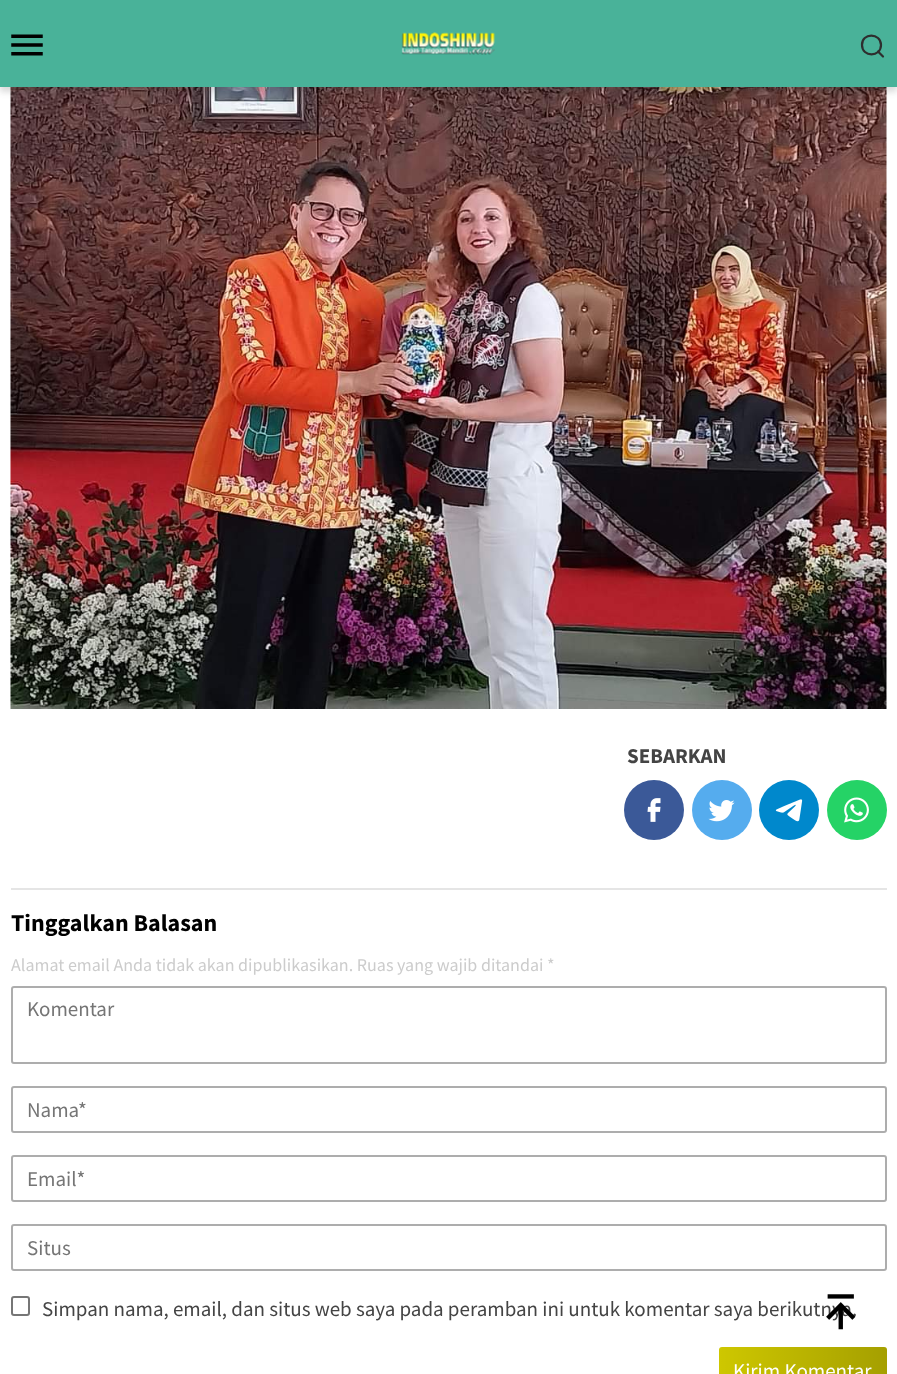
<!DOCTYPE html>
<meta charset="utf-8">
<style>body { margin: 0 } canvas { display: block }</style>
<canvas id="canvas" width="897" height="1374"></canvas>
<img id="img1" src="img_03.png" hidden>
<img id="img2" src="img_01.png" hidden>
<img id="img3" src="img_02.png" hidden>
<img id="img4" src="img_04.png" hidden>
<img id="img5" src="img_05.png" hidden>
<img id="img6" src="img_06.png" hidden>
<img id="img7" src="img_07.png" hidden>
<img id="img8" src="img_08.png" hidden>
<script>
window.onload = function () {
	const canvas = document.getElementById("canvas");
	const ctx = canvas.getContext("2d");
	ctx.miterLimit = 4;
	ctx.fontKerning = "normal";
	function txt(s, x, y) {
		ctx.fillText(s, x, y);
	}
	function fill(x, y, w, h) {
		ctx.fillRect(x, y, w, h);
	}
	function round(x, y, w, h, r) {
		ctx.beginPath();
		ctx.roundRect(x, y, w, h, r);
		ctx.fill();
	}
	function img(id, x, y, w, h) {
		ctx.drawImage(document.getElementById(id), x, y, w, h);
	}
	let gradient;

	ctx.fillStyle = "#FFFFFF";
	fill(0, 0, 897, 1374);
	img("img1", 10, 87, 877, 622);
	ctx.fillStyle = "rgba(52, 52, 52, 0.18)";
	ctx.filter = "blur(3px)";
	ctx.beginPath();
	ctx.rect(0, 5, 897, 87);
	ctx.fill();
	ctx.filter = "none";
	ctx.fillStyle = "#49B299";
	fill(0, 0, 897, 87);
	img("img2", 11, 34, 32, 22);
	img("img3", 401, 32, 94, 23);
	ctx.beginPath();
	ctx.moveTo(883, 56.5);
	ctx.lineTo(878, 51.5);
	ctx.moveTo(881, 45);
	ctx.bezierCurveTo(881, 57.5, 862, 57.5, 862, 45);
	ctx.bezierCurveTo(861.5, 32.5, 881, 32.5, 881, 45);
	ctx.closePath();
	ctx.strokeStyle = "#2E2E2E";
	ctx.lineWidth = 2.2;
	ctx.lineCap = "round";
	ctx.stroke();
	ctx.fillStyle = "#E5E5E5";
	fill(11, 888, 876, 2);
	ctx.fillStyle = "#3B5998";
	ctx.beginPath();
	ctx.arc(654, 810, 30, 0, Math.PI * 2);
	ctx.fill();
	img("img4", 647, 798, 14, 24);
	ctx.fillStyle = "#55ACEE";
	ctx.beginPath();
	ctx.arc(722, 810, 30, 0, Math.PI * 2);
	ctx.fill();
	img("img5", 708, 800, 27, 22);
	ctx.fillStyle = "#0088CC";
	ctx.beginPath();
	ctx.arc(789, 810, 30, 0, Math.PI * 2);
	ctx.fill();
	img("img6", 775, 799, 28, 23);
	ctx.fillStyle = "#25D366";
	ctx.beginPath();
	ctx.arc(857, 810, 30, 0, Math.PI * 2);
	ctx.fill();
	img("img7", 844, 797, 25, 26);
	ctx.beginPath();
	ctx.roundRect(12, 987, 874, 76, 2);
	ctx.strokeStyle = "#ADADAD";
	ctx.lineWidth = 2;
	ctx.stroke();
	ctx.beginPath();
	ctx.roundRect(12, 1087, 874, 45, 2);
	ctx.stroke();
	ctx.beginPath();
	ctx.roundRect(12, 1156, 874, 45, 2);
	ctx.stroke();
	ctx.beginPath();
	ctx.roundRect(12, 1225, 874, 45, 2);
	ctx.stroke();
	ctx.beginPath();
	ctx.roundRect(12, 1297, 17, 18, 2);
	ctx.strokeStyle = "#767676";
	ctx.stroke();
	ctx.fillStyle = "#CEC700";
	round(719, 1347, 168, 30, 3);
	gradient = ctx.createLinearGradient(719, 1370, 887, 1370);
	gradient.addColorStop(0, "rgba(0, 0, 0, 0)");
	gradient.addColorStop(1, "rgba(0, 0, 0, 0.2)");
	ctx.fillStyle = gradient;
	round(719, 1347, 168, 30, 3);
	ctx.font = "bold 21px Source Sans Pro";
	ctx.fillStyle = "#444444";
	txt("SEBARKAN", 627, 763);
	ctx.font = "bold 24px Source Sans Pro";
	ctx.fillStyle = "#000000";
	txt("Tinggalkan Balasan", 11, 931);
	ctx.font = "18px Source Sans Pro";
	ctx.fillStyle = "#CCCCCC";
	txt("Alamat email Anda tidak akan dipublikasikan. Ruas yang wajib ditandai *", 11, 971);
	ctx.font = "21px Source Sans Pro";
	ctx.fillStyle = "#757575";
	txt("Komentar", 27, 1016);
	txt("Nama*", 27, 1117);
	txt("Email*", 27, 1186);
	txt("Situs", 27, 1255);
	ctx.fillStyle = "#444444";
	txt("Simpan nama, email, dan situs web saya pada peramban ini untuk komentar saya berikutnya.", 42, 1316);
	ctx.fillStyle = "#FFFFFF";
	txt("Kirim Komentar", 733, 1378);
	img("img8", 826, 1294, 30, 36);
};
</script>
